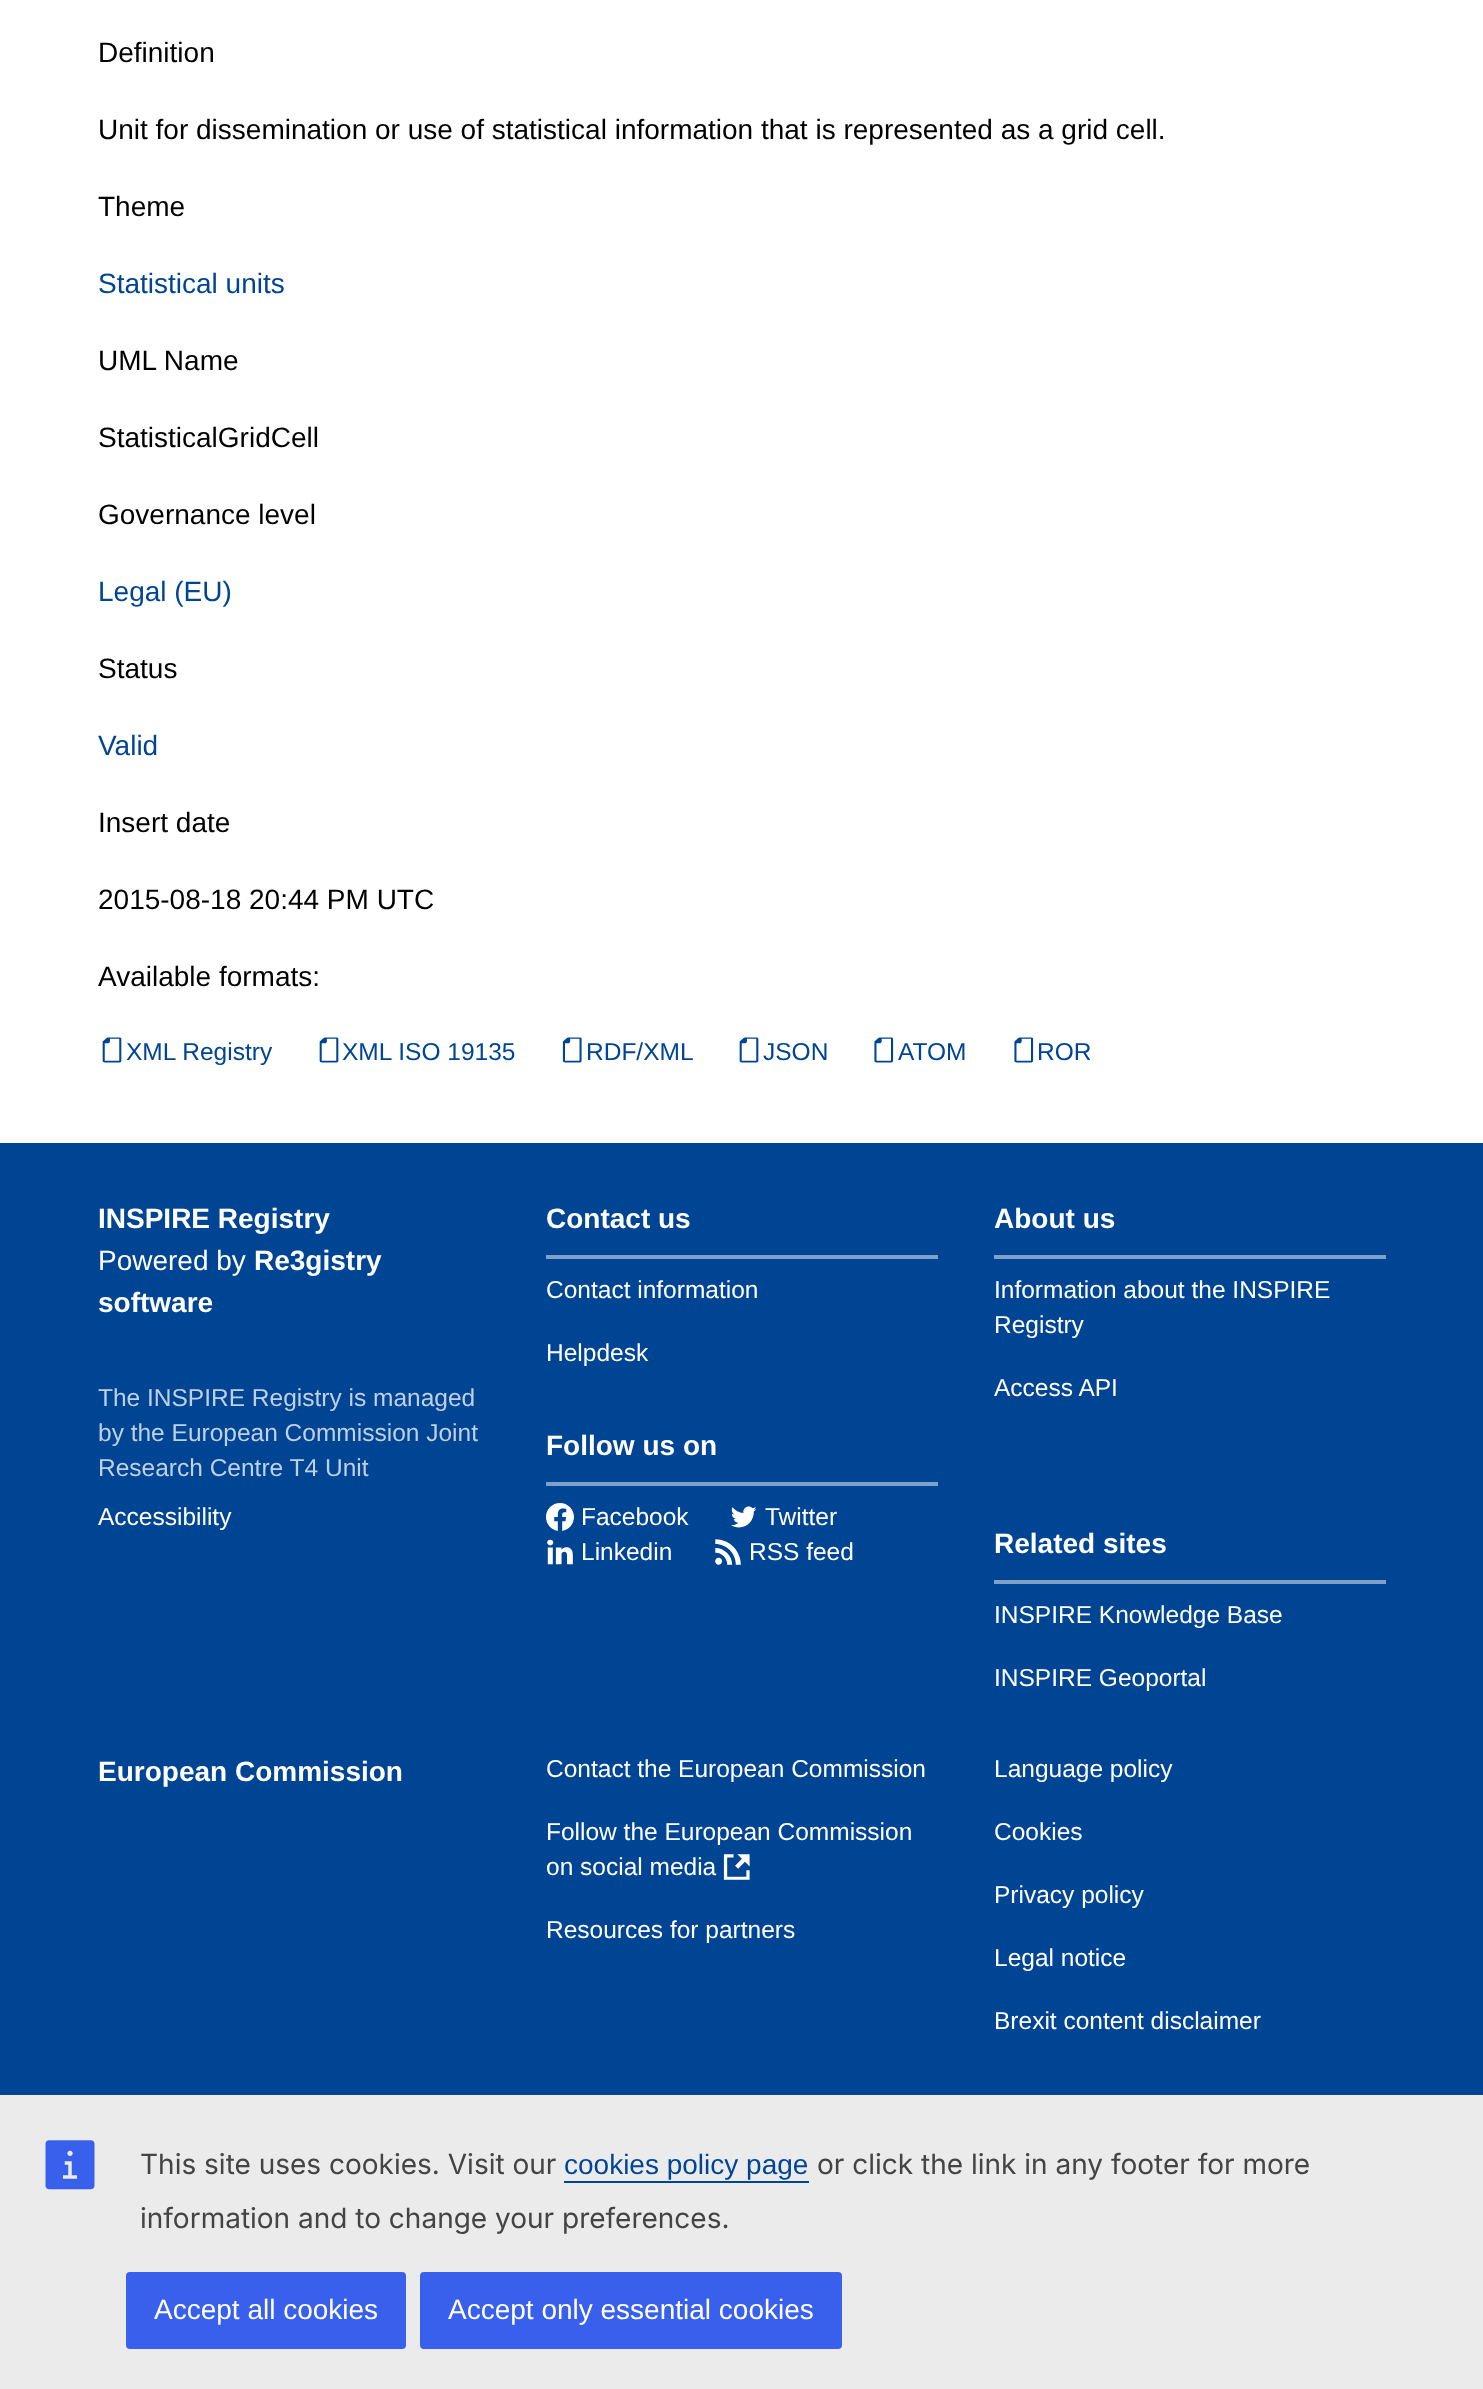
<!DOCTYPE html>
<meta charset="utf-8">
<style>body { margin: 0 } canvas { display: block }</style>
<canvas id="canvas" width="1483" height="2389"></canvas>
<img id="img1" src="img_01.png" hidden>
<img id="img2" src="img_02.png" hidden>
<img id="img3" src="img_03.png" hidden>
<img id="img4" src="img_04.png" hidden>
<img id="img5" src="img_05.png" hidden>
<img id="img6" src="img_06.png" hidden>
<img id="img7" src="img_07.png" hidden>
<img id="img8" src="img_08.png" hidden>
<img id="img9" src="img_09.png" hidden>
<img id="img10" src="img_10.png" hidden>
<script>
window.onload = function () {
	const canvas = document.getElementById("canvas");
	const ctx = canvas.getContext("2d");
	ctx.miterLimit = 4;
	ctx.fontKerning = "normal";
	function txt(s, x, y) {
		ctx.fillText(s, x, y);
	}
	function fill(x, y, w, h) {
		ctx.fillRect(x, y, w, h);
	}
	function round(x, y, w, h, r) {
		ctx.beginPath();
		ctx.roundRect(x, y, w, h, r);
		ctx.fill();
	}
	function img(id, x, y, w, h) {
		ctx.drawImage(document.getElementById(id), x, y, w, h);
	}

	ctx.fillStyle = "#FFFFFF";
	fill(0, 0, 1483, 2389);
	img("img1", 102, 1037, 20, 26);
	img("img1", 319, 1037, 20, 26);
	img("img2", 562, 1037, 20, 26);
	img("img1", 739, 1037, 20, 26);
	img("img3", 874, 1037, 20, 26);
	img("img4", 1014, 1037, 20, 26);
	ctx.fillStyle = "#004494";
	fill(0, 1143, 1483, 952);
	ctx.fillStyle = "#7FA1C9";
	fill(546, 1255, 392, 4);
	fill(546, 1482, 392, 4);
	img("img5", 546, 1503, 28, 28);
	img("img6", 731, 1506, 26, 22);
	img("img7", 547, 1539, 26, 26);
	img("img8", 715, 1539, 26, 26);
	fill(994, 1255, 392, 4);
	fill(994, 1580, 392, 4);
	img("img9", 723, 1854, 27, 26);
	ctx.fillStyle = "#EBEBEB";
	fill(0, 2095, 1483, 294);
	img("img10", 45, 2140, 50, 50);
	ctx.fillStyle = "#004494";
	fill(564, 2181, 245, 2);
	ctx.fillStyle = "#3860ED";
	round(126, 2272, 280, 77, 4);
	round(420, 2272, 422, 77, 4);
	ctx.font = "28px Liberation Sans";
	ctx.fillStyle = "#000000";
	txt("Definition", 98, 62);
	txt("Unit for dissemination or use of statistical information that is represented as a grid cell.", 98, 139);
	txt("Theme", 98, 216);
	ctx.fillStyle = "#004494";
	txt("Statistical units", 98, 293);
	ctx.fillStyle = "#000000";
	txt("UML Name", 98, 370);
	txt("StatisticalGridCell", 98, 447);
	txt("Governance level", 98, 524);
	ctx.fillStyle = "#004494";
	txt("Legal (EU)", 98, 601);
	ctx.fillStyle = "#000000";
	txt("Status", 98, 678);
	ctx.fillStyle = "#004494";
	txt("Valid", 98, 755);
	ctx.fillStyle = "#000000";
	txt("Insert date", 98, 832);
	txt("2015-08-18 20:44 PM UTC", 98, 909);
	txt("Available formats:", 98, 986);
	ctx.font = "24.5px Liberation Sans";
	ctx.fillStyle = "#004494";
	txt("XML Registry", 126, 1060);
	txt("XML ISO 19135", 342, 1060);
	txt("RDF/XML", 586, 1060);
	txt("JSON", 763, 1060);
	txt("ATOM", 898, 1060);
	txt("ROR", 1037, 1060);
	ctx.font = "bold 28px Liberation Sans";
	ctx.fillStyle = "#FFFFFF";
	txt("INSPIRE Registry", 98, 1228);
	ctx.font = "28px Liberation Sans";
	txt("Powered by", 98, 1270);
	ctx.font = "bold 28px Liberation Sans";
	txt("Re3gistry", 254, 1270);
	txt("software", 98, 1312);
	ctx.font = "24.5px Liberation Sans";
	ctx.fillStyle = "#BFD0E4";
	txt("The INSPIRE Registry is managed", 98, 1406);
	txt("by the European Commission Joint", 98, 1441);
	txt("Research Centre T4 Unit", 98, 1476);
	ctx.fillStyle = "#FFFFFF";
	txt("Accessibility", 98, 1525);
	ctx.font = "bold 28px Liberation Sans";
	txt("Contact us", 546, 1228);
	ctx.font = "24.5px Liberation Sans";
	txt("Contact information", 546, 1298);
	txt("Helpdesk", 546, 1361);
	ctx.font = "bold 28px Liberation Sans";
	txt("Follow us on", 546, 1455);
	ctx.font = "24.5px Liberation Sans";
	txt("Facebook", 581, 1525);
	txt("Twitter", 765, 1525);
	txt("Linkedin", 581, 1560);
	txt("RSS feed", 749, 1560);
	ctx.font = "bold 28px Liberation Sans";
	txt("About us", 994, 1228);
	ctx.font = "24.5px Liberation Sans";
	txt("Information about the INSPIRE", 994, 1298);
	txt("Registry", 994, 1333);
	txt("Access API", 994, 1396);
	ctx.font = "bold 28px Liberation Sans";
	txt("Related sites", 994, 1553);
	ctx.font = "24.5px Liberation Sans";
	txt("INSPIRE Knowledge Base", 994, 1623);
	txt("INSPIRE Geoportal", 994, 1686);
	ctx.font = "bold 28px Liberation Sans";
	txt("European Commission", 98, 1781);
	ctx.font = "24.5px Liberation Sans";
	txt("Contact the European Commission", 546, 1777);
	txt("Follow the European Commission", 546, 1840);
	txt("on social media", 546, 1875);
	txt("Resources for partners", 546, 1938);
	txt("Language policy", 994, 1777);
	txt("Cookies", 994, 1840);
	txt("Privacy policy", 994, 1903);
	txt("Legal notice", 994, 1966);
	txt("Brexit content disclaimer", 994, 2029);
	ctx.font = "28px Inter";
	ctx.fillStyle = "#444444";
	txt("This site uses cookies. Visit our", 140, 2174);
	ctx.font = "28px Liberation Sans";
	ctx.fillStyle = "#004494";
	txt("cookies policy page", 564, 2174);
	ctx.font = "28px Inter";
	ctx.fillStyle = "#444444";
	txt("or click the link in any footer for more", 817, 2174);
	txt("information and to change your preferences.", 140, 2228);
	ctx.font = "28px Liberation Sans";
	ctx.fillStyle = "#FFFFFF";
	txt("Accept all cookies", 154, 2319);
	txt("Accept only essential cookies", 448, 2319);
};
</script>
